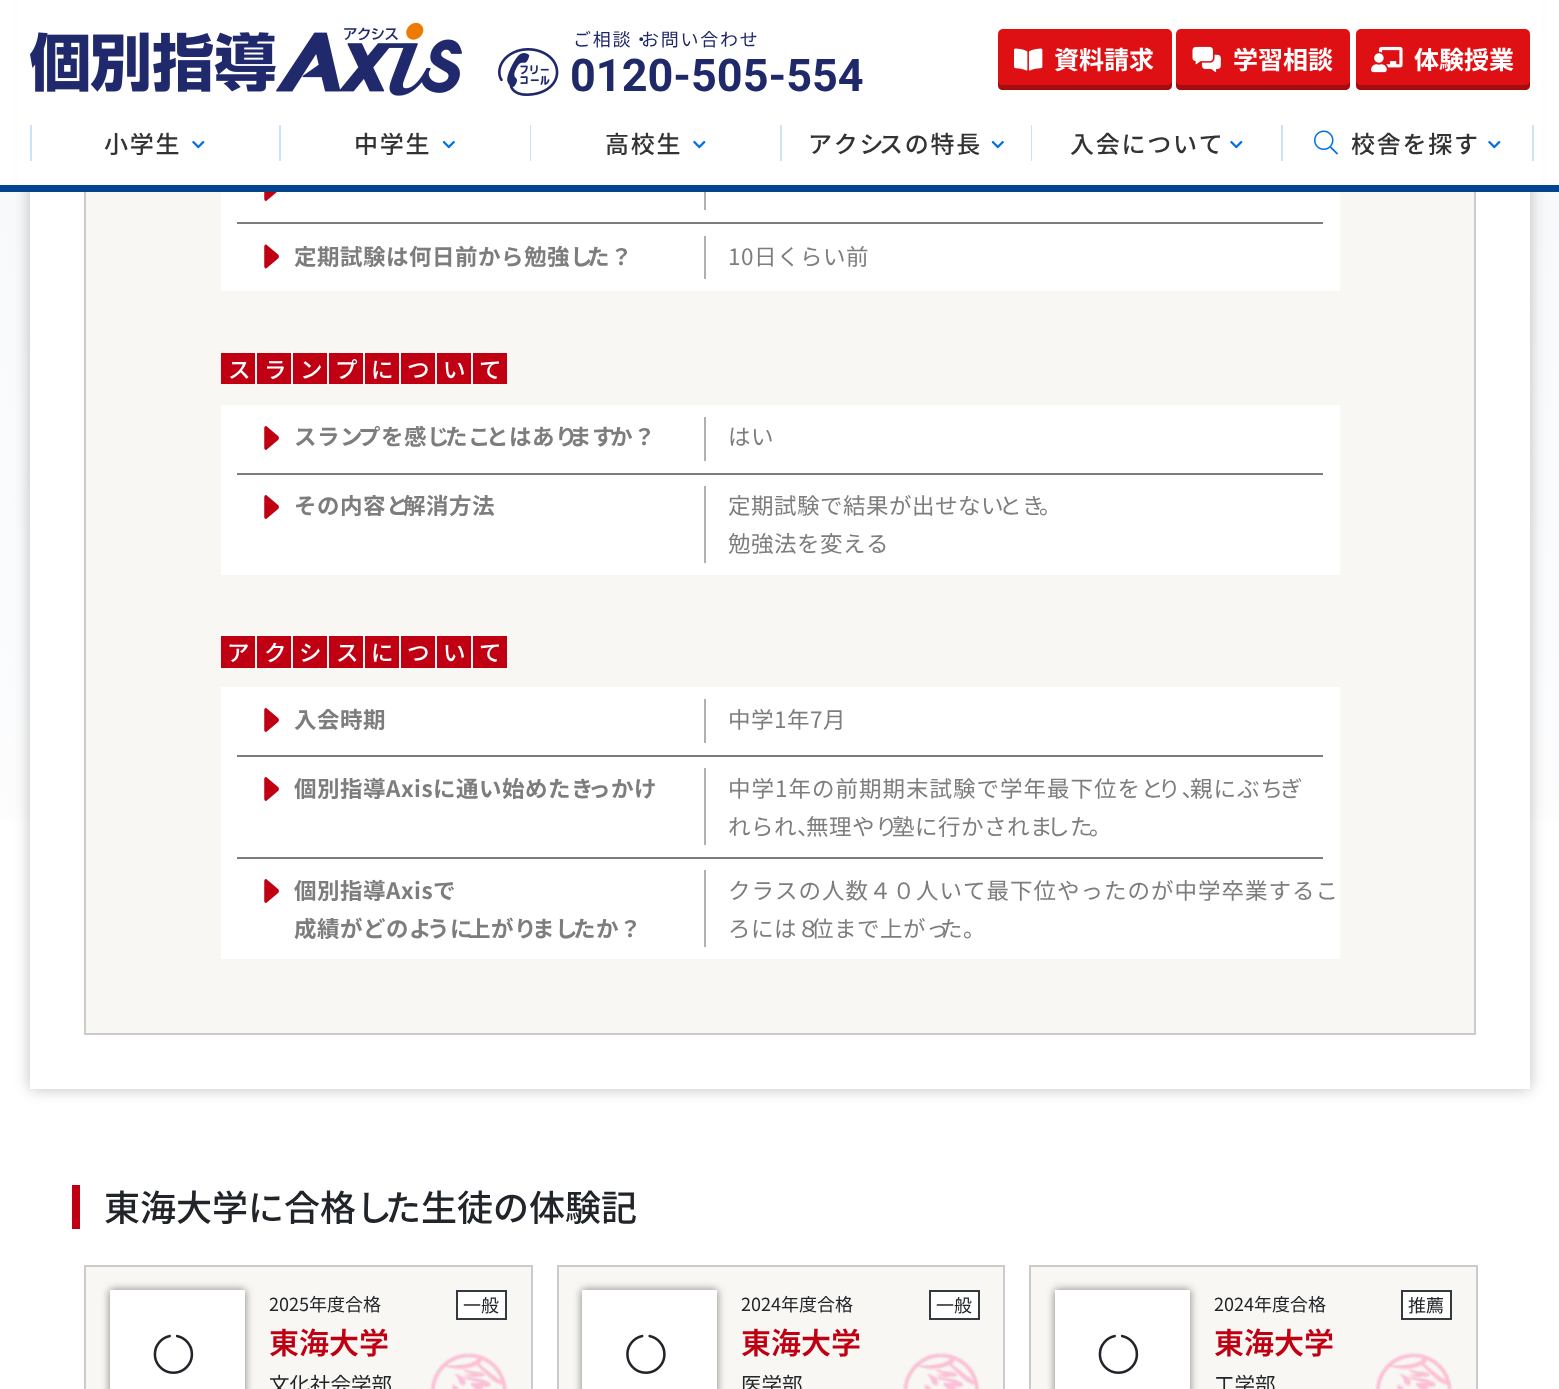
<!DOCTYPE html>
<meta charset="utf-8">
<style>body { margin: 0 } canvas { display: block }</style>
<canvas id="canvas" width="1559" height="1389"></canvas>
<img id="img1" src="img_01.png" hidden>
<img id="img2" src="img_02.png" hidden>
<img id="img3" src="img_03.png" hidden>
<img id="img4" src="img_04.png" hidden>
<img id="img5" src="img_05.png" hidden>
<img id="img6" src="img_06.png" hidden>
<img id="img7" src="img_07.png" hidden>
<img id="img8" src="img_08.png" hidden>
<img id="img9" src="img_09.png" hidden>
<img id="img10" src="img_10.png" hidden>
<img id="img11" src="img_11.png" hidden>
<img id="img12" src="img_12.png" hidden>
<img id="img13" src="img_13.png" hidden>
<img id="img14" src="img_14.png" hidden>
<img id="img15" src="img_15.png" hidden>
<script>
window.onload = function () {
	const canvas = document.getElementById("canvas");
	const ctx = canvas.getContext("2d");
	ctx.miterLimit = 4;
	ctx.fontKerning = "none";
	function txt(s, x, y) {
		ctx.fillText(s, x, y);
	}
	function fill(x, y, w, h) {
		ctx.fillRect(x, y, w, h);
	}
	function round(x, y, w, h, r) {
		ctx.beginPath();
		ctx.roundRect(x, y, w, h, r);
		ctx.fill();
	}
	function img(id, x, y, w, h) {
		ctx.drawImage(document.getElementById(id), x, y, w, h);
	}
	let gradient;

	ctx.fillStyle = "#FFFFFF";
	fill(0, 0, 1559, 1389);
	gradient = ctx.createLinearGradient(780, -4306, 780, 1161);
	gradient.addColorStop(0, "#D7DDEA");
	gradient.addColorStop(1, "#FFFFFF");
	ctx.fillStyle = gradient;
	fill(0, 192, 1559, 627);
	ctx.fillStyle = "rgba(0, 0, 0, 0.25)";
	ctx.filter = "blur(7.5px)";
	ctx.beginPath();
	ctx.rect(30, -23, 1500, 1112);
	ctx.fill();
	ctx.filter = "none";
	ctx.fillStyle = "#FFFFFF";
	fill(30, 192, 1500, 897);
	ctx.fillStyle = "#F8F7F3";
	fill(86, 192, 1388, 841);
	ctx.strokeStyle = "#CBCBCD";
	ctx.lineWidth = 2;
	ctx.strokeRect(85, -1, 1390, 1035);
	ctx.fillStyle = "#FFFFFF";
	fill(17, 0, 1526, 185);
	ctx.fillStyle = "#044491";
	fill(0, 185, 1559, 7);
	img("img1", 30, 23, 432, 73);
	img("img2", 498, 48, 61, 48);
	ctx.fillStyle = "#DE1014";
	round(998, 29, 174, 61, 5);
	ctx.fillStyle = "#A50C0F";
	ctx.beginPath();
	ctx.moveTo(998, 81);
	ctx.lineTo(998, 85);
	ctx.bezierCurveTo(998, 88, 1000, 90, 1003, 90);
	ctx.lineTo(1167, 90);
	ctx.bezierCurveTo(1170, 90, 1172, 88, 1172, 85);
	ctx.lineTo(1172, 81);
	ctx.bezierCurveTo(1172, 83, 1169, 85, 1167, 85);
	ctx.lineTo(1002, 85);
	ctx.bezierCurveTo(1000, 85, 998, 83, 998, 81);
	ctx.closePath();
	ctx.fill();
	img("img3", 1014, 48, 29, 23);
	ctx.fillStyle = "#DE1014";
	round(1176, 29, 174, 61, 5);
	ctx.fillStyle = "#A50C0F";
	ctx.beginPath();
	ctx.moveTo(1176, 81);
	ctx.lineTo(1176, 85);
	ctx.bezierCurveTo(1176, 88, 1178, 90, 1181, 90);
	ctx.lineTo(1345, 90);
	ctx.bezierCurveTo(1348, 90, 1350, 88, 1350, 85);
	ctx.lineTo(1350, 81);
	ctx.bezierCurveTo(1350, 83, 1348, 85, 1345, 85);
	ctx.lineTo(1181, 85);
	ctx.bezierCurveTo(1178, 85, 1176, 83, 1176, 81);
	ctx.closePath();
	ctx.fill();
	img("img4", 1192, 46, 29, 27);
	ctx.fillStyle = "#DE1014";
	round(1356, 29, 174, 61, 5);
	ctx.fillStyle = "#A50C0F";
	ctx.beginPath();
	ctx.moveTo(1356, 81);
	ctx.lineTo(1356, 85);
	ctx.bezierCurveTo(1356, 88, 1358, 90, 1361, 90);
	ctx.lineTo(1525, 90);
	ctx.bezierCurveTo(1528, 90, 1530, 88, 1530, 85);
	ctx.lineTo(1530, 81);
	ctx.bezierCurveTo(1530, 83, 1528, 85, 1525, 85);
	ctx.lineTo(1361, 85);
	ctx.bezierCurveTo(1358, 85, 1356, 83, 1356, 81);
	ctx.closePath();
	ctx.fill();
	img("img5", 1371, 46, 32, 27);
	ctx.fillStyle = "#CCE2FA";
	fill(30, 125, 2, 36);
	img("img6", 192, 140, 13, 9);
	fill(279, 125, 2, 36);
	img("img7", 442, 140, 13, 9);
	fill(530, 125, 1, 36);
	img("img6", 693, 140, 13, 9);
	fill(780, 125, 2, 36);
	img("img7", 991, 140, 13, 9);
	fill(1031, 125, 1, 36);
	img("img6", 1230, 140, 13, 9);
	fill(1281, 125, 2, 36);
	img("img8", 1314, 130, 24, 25);
	img("img6", 1488, 140, 13, 9);
	fill(1532, 125, 2, 36);
	ctx.fillStyle = "#FFFFFF";
	fill(221, 192, 1119, 99);
	ctx.fillStyle = "#7D7D7D";
	fill(237, 222, 1086, 2);
	img("img9", 264, 192, 13, 9);
	ctx.fillStyle = "#B0B0B0";
	fill(704, 192, 2, 18);
	img("img10", 264, 244, 15, 25);
	fill(704, 236, 2, 43);
	ctx.fillStyle = "#C00012";
	fill(221, 353, 34, 31);
	fill(257, 353, 34, 31);
	fill(293, 353, 34, 31);
	fill(329, 353, 34, 31);
	fill(365, 353, 34, 31);
	fill(401, 353, 34, 31);
	fill(437, 353, 34, 31);
	fill(473, 353, 34, 31);
	ctx.fillStyle = "#FFFFFF";
	fill(221, 405, 1119, 170);
	ctx.fillStyle = "#7D7D7D";
	fill(237, 473, 1086, 2);
	img("img11", 264, 426, 15, 24);
	ctx.fillStyle = "#B0B0B0";
	fill(704, 417, 2, 44);
	img("img11", 264, 495, 15, 24);
	fill(704, 486, 2, 77);
	ctx.fillStyle = "#C00012";
	fill(221, 636, 34, 32);
	fill(257, 636, 34, 32);
	fill(293, 636, 34, 32);
	fill(329, 636, 34, 32);
	fill(365, 636, 34, 32);
	fill(401, 636, 34, 32);
	fill(437, 636, 34, 32);
	fill(473, 636, 34, 32);
	ctx.fillStyle = "#FFFFFF";
	fill(221, 687, 1119, 272);
	ctx.fillStyle = "#7D7D7D";
	fill(237, 755, 1086, 2);
	img("img11", 264, 708, 15, 24);
	ctx.fillStyle = "#B0B0B0";
	fill(704, 699, 2, 44);
	ctx.fillStyle = "#7D7D7D";
	fill(237, 857, 1086, 2);
	img("img11", 264, 777, 15, 24);
	ctx.fillStyle = "#B0B0B0";
	fill(704, 768, 2, 77);
	img("img11", 264, 879, 15, 24);
	fill(704, 870, 2, 77);
	ctx.fillStyle = "#C00012";
	fill(72, 1185, 8, 44);
	ctx.fillStyle = "#F8F7F3";
	ctx.beginPath();
	ctx.rect(85, 1266, 447, 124);
	ctx.fill();
	ctx.stroke();
	img("img12", 430, 1352, 78, 37);
	ctx.fillStyle = "#7D7D7D";
	ctx.filter = "blur(4px)";
	ctx.beginPath();
	ctx.rect(110, 1290, 135, 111);
	ctx.fill();
	ctx.filter = "none";
	ctx.fillStyle = "#FFFFFF";
	fill(110, 1290, 135, 99);
	img("img13", 153, 1334, 41, 40);
	ctx.beginPath();
	ctx.rect(457, 1291, 49, 28);
	ctx.fill();
	ctx.strokeStyle = "#343A40";
	ctx.stroke();
	ctx.fillStyle = "#F8F7F3";
	ctx.beginPath();
	ctx.rect(558, 1266, 446, 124);
	ctx.fill();
	ctx.strokeStyle = "#CBCBCD";
	ctx.stroke();
	img("img14", 902, 1352, 78, 37);
	ctx.fillStyle = "#7D7D7D";
	ctx.filter = "blur(4px)";
	ctx.beginPath();
	ctx.rect(582, 1290, 135, 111);
	ctx.fill();
	ctx.filter = "none";
	ctx.fillStyle = "#FFFFFF";
	fill(582, 1290, 135, 99);
	img("img15", 626, 1334, 40, 40);
	ctx.beginPath();
	ctx.rect(930, 1291, 49, 28);
	ctx.fill();
	ctx.strokeStyle = "#343A40";
	ctx.stroke();
	ctx.fillStyle = "#F8F7F3";
	ctx.beginPath();
	ctx.rect(1030, 1266, 447, 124);
	ctx.fill();
	ctx.strokeStyle = "#CBCBCD";
	ctx.stroke();
	img("img12", 1375, 1352, 78, 37);
	ctx.fillStyle = "#7D7D7D";
	ctx.filter = "blur(4px)";
	ctx.beginPath();
	ctx.rect(1055, 1290, 135, 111);
	ctx.fill();
	ctx.filter = "none";
	ctx.fillStyle = "#FFFFFF";
	fill(1055, 1290, 135, 99);
	img("img13", 1098, 1334, 41, 40);
	ctx.beginPath();
	ctx.rect(1402, 1291, 49, 28);
	ctx.fill();
	ctx.strokeStyle = "#343A40";
	ctx.stroke();
	ctx.letterSpacing = "1.75px";
	ctx.font = "100 18px Noto Sans JP";
	ctx.fillStyle = "#1F296A";
	txt("ご相談・", 573, 46);
	txt("お問い合わせ", 641, 46);
	ctx.letterSpacing = "0px";
	ctx.font = "bold 45px Roboto";
	txt("0120-505-554", 570, 91);
	ctx.font = "bold 25px Noto Sans JP";
	ctx.fillStyle = "#FFFFFF";
	txt("資料請求", 1054, 69);
	txt("学習相談", 1233, 69);
	txt("体験授業", 1414, 69);
	ctx.letterSpacing = "1.75px";
	ctx.font = "500 24px Noto Sans JP";
	ctx.fillStyle = "#333333";
	txt("小学生", 104, 153);
	txt("中学生", 354, 153);
	txt("高校生", 605, 153);
	txt("アクシ", 808, 153);
	txt("スの特長", 879, 153);
	txt("入会について", 1070, 153);
	txt("校舎を探す", 1351, 153);
	ctx.letterSpacing = "0.5px";
	ctx.font = "bold 22.5px Noto Sans JP";
	ctx.fillStyle = "#7D7D7D";
	txt("定期試験は何日前から勉強し", 294, 265);
	txt("た？", 587, 265);
	ctx.font = "100 22.5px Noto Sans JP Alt";
	txt("10日くらい前", 728, 265);
	ctx.letterSpacing = "0px";
	ctx.font = "500 22.5px Noto Sans JP";
	ctx.fillStyle = "#FFFFFF";
	txt("ス", 228, 378);
	txt("ラ", 264, 378);
	txt("ン", 300, 378);
	txt("プ", 335, 378);
	txt("に", 371, 378);
	txt("つ", 407, 378);
	txt("い", 443, 378);
	txt("て", 479, 378);
	ctx.letterSpacing = "0.5px";
	ctx.font = "bold 22.5px Noto Sans JP";
	ctx.fillStyle = "#7D7D7D";
	txt("スラン", 294, 445);
	txt("プを感じ", 358, 445);
	txt("たこ", 445, 445);
	txt("とはあり", 486, 445);
	txt("ます", 569, 445);
	txt("か？", 610, 445);
	ctx.font = "100 22.5px Noto Sans JP";
	txt("はい", 728, 445);
	ctx.font = "bold 22.5px Noto Sans JP";
	txt("その内容と", 294, 514);
	txt("解消方法", 403, 514);
	ctx.font = "100 22.5px Noto Sans JP";
	txt("定期試験で結果が出せない", 728, 514);
	txt("とき", 999, 514);
	txt("。", 1039, 514);
	txt("勉強法を変える", 728, 552);
	ctx.letterSpacing = "0px";
	ctx.font = "500 22.5px Noto Sans JP";
	ctx.fillStyle = "#FFFFFF";
	txt("ア", 227, 661);
	txt("ク", 264, 661);
	txt("シ", 299, 661);
	txt("ス", 336, 661);
	txt("に", 371, 661);
	txt("つ", 407, 661);
	txt("い", 443, 661);
	txt("て", 479, 661);
	ctx.letterSpacing = "0.5px";
	ctx.font = "bold 22.5px Noto Sans JP";
	ctx.fillStyle = "#7D7D7D";
	txt("入会時期", 294, 728);
	ctx.font = "100 22.5px Noto Sans JP";
	txt("中学1年7月", 728, 728);
	ctx.font = "bold 22.5px Noto Sans JP";
	txt("個別指導Axisに通い始めたき", 294, 797);
	txt("っかけ", 588, 797);
	ctx.letterSpacing = "1px";
	ctx.font = "100 22.5px Noto Sans JP";
	txt("中学1年の前期期末試験で学年最下位をと", 728, 797);
	txt("り、", 1158, 797);
	txt("親にぶち", 1190, 797);
	txt("ぎ", 1280, 797);
	ctx.letterSpacing = "0.5px";
	txt("れられ、", 728, 835);
	txt("無理やり", 806, 835);
	txt("塾に行かされま", 892, 835);
	txt("した", 1047, 835);
	txt("。", 1089, 835);
	ctx.font = "bold 22.5px Noto Sans JP";
	txt("個別指導Axisで", 294, 899);
	txt("成績がどのよ", 294, 937);
	txt("うに", 427, 937);
	txt("上がり", 468, 937);
	txt("まし", 532, 937);
	txt("たか？", 573, 937);
	ctx.letterSpacing = "1px";
	ctx.font = "100 22.5px Noto Sans JP Alt";
	txt("クラスの人数４０人いて最下位やったのが中学卒業するこ", 728, 899);
	ctx.letterSpacing = "0.5px";
	ctx.font = "100 22.5px Noto Sans JP";
	txt("ろには８", 728, 937);
	txt("位まで上がっ", 811, 937);
	txt("た。", 940, 937);
	ctx.letterSpacing = "0px";
	ctx.font = "500 36px Noto Sans JP";
	ctx.fillStyle = "#212529";
	txt("東海大学に合格し", 104, 1221);
	txt("た生徒の体験記", 385, 1221);
	ctx.font = "100 18px Noto Sans JP";
	txt("2025年度合格", 269, 1311);
	txt("一般", 463, 1312);
	ctx.font = "600 30px Noto Sans JP";
	ctx.fillStyle = "#C00012";
	txt("東海大学", 269, 1354);
	ctx.font = "100 20.5px Noto Sans JP";
	ctx.fillStyle = "#212529";
	txt("文化社会学部", 269, 1392);
	ctx.font = "100 18px Noto Sans JP";
	txt("2024年度合格", 741, 1311);
	txt("一般", 936, 1312);
	ctx.font = "600 30px Noto Sans JP";
	ctx.fillStyle = "#C00012";
	txt("東海大学", 741, 1354);
	ctx.font = "100 20.5px Noto Sans JP";
	ctx.fillStyle = "#212529";
	txt("医学部", 741, 1392);
	ctx.font = "100 18px Noto Sans JP";
	txt("2024年度合格", 1214, 1311);
	txt("推薦", 1408, 1312);
	ctx.font = "600 30px Noto Sans JP";
	ctx.fillStyle = "#C00012";
	txt("東海大学", 1214, 1354);
	ctx.font = "100 20.5px Noto Sans JP";
	ctx.fillStyle = "#212529";
	txt("工学部", 1214, 1392);
};
</script>
